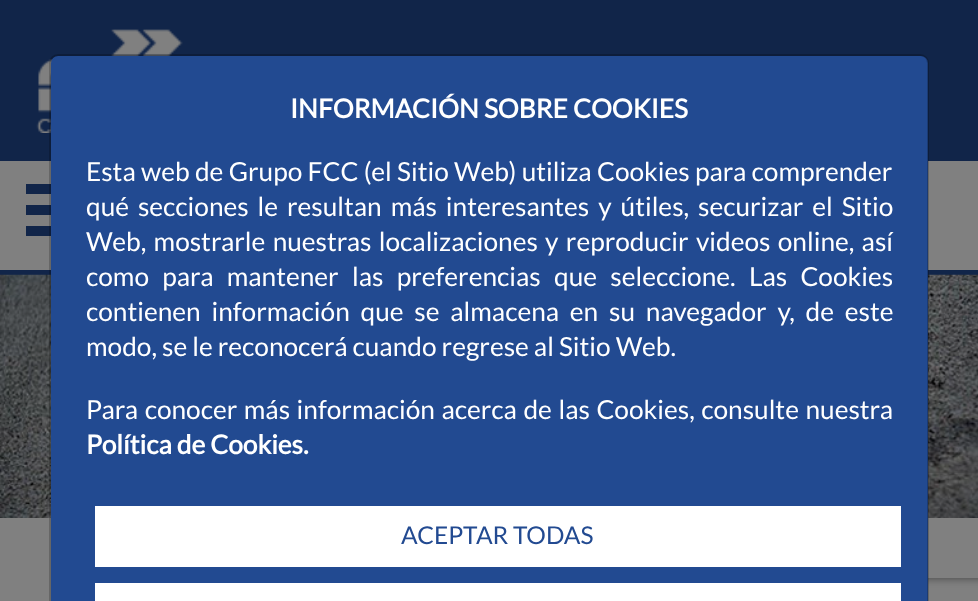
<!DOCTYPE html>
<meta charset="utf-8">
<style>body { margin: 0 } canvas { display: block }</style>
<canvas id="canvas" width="978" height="601"></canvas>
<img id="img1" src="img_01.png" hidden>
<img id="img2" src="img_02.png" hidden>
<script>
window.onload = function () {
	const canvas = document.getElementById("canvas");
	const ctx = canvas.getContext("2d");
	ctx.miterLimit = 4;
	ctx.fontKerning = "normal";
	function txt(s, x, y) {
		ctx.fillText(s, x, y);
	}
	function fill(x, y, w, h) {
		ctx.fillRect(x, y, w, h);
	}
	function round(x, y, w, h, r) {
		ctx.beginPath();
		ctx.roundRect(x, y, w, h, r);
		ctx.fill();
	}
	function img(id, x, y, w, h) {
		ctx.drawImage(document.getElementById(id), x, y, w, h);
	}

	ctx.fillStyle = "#808080";
	fill(0, 0, 978, 601);
	ctx.fillStyle = "#112549";
	fill(0, 0, 978, 161);
	img("img1", 36, 29, 147, 104);
	fill(0, 270, 978, 5);
	fill(26, 205, 25, 10);
	fill(26, 184, 25, 10);
	fill(26, 226, 25, 10);
	img("img2", 0, 274, 978, 244);
	ctx.save();
	ctx.beginPath();
	ctx.moveTo(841, 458);
	ctx.lineTo(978, 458);
	ctx.lineTo(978, 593);
	ctx.lineTo(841, 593);
	ctx.closePath();
	ctx.moveTo(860, 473);
	ctx.lineTo(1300, 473);
	ctx.bezierCurveTo(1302, 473, 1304, 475, 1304, 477);
	ctx.lineTo(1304, 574);
	ctx.bezierCurveTo(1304, 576, 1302, 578, 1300, 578);
	ctx.lineTo(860, 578);
	ctx.bezierCurveTo(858, 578, 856, 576, 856, 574);
	ctx.lineTo(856, 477);
	ctx.bezierCurveTo(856, 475, 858, 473, 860, 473);
	ctx.closePath();
	ctx.clip("evenodd");
	ctx.fillStyle = "#404040";
	ctx.filter = "blur(4.5px)";
	ctx.beginPath();
	ctx.roundRect(856, 473, 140, 105, 4);
	ctx.fill();
	ctx.filter = "none";
	ctx.restore();
	ctx.fillStyle = "#224A91";
	round(51, 56, 877, 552, 7);
	ctx.beginPath();
	ctx.roundRect(50, 55, 878, 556, 8);
	ctx.strokeStyle = "rgba(0, 0, 0, 0.2)";
	ctx.lineWidth = 2;
	ctx.stroke();
	ctx.fillStyle = "#FFFFFF";
	ctx.beginPath();
	ctx.rect(96, 507, 804, 59);
	ctx.fill();
	ctx.strokeStyle = "#FFFFFF";
	ctx.stroke();
	ctx.beginPath();
	ctx.rect(96, 584, 804, 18);
	ctx.fill();
	ctx.stroke();
	ctx.font = "bold 26.25px Lato";
	txt("INFORMACIÓN SOBRE COOKIES", 290, 118);
	ctx.wordSpacing = "0.3px";
	ctx.font = "26.25px Lato";
	txt("Esta web de Grupo FCC (el Sitio Web) utiliza Cookies para comprender", 86, 181);
	ctx.wordSpacing = "3.9px";
	txt("qué secciones le resultan más interesantes y útiles, securizar el Sitio", 86, 216);
	ctx.wordSpacing = "2.25px";
	txt("Web, mostrarle nuestras localizaciones y reproducir videos online, así", 86, 251);
	ctx.wordSpacing = "8.25px";
	txt("como para mantener las preferencias que seleccione. Las Cookies", 86, 286);
	ctx.wordSpacing = "5.75px";
	txt("contienen información que se almacena en su navegador y, de este", 86, 321);
	ctx.wordSpacing = "0px";
	txt("modo, se le reconocerá cuando regrese al Sitio Web.", 86, 356);
	ctx.wordSpacing = "1.5px";
	txt("Para conocer más información acerca de las Cookies, consulte nuestra", 86, 419);
	ctx.wordSpacing = "0px";
	ctx.font = "bold 26.25px Lato";
	txt("Política de Cookies.", 86, 454);
	ctx.font = "24.5px Lato";
	ctx.fillStyle = "#224A91";
	txt("ACEPTAR TODAS", 401, 544);
};
</script>
